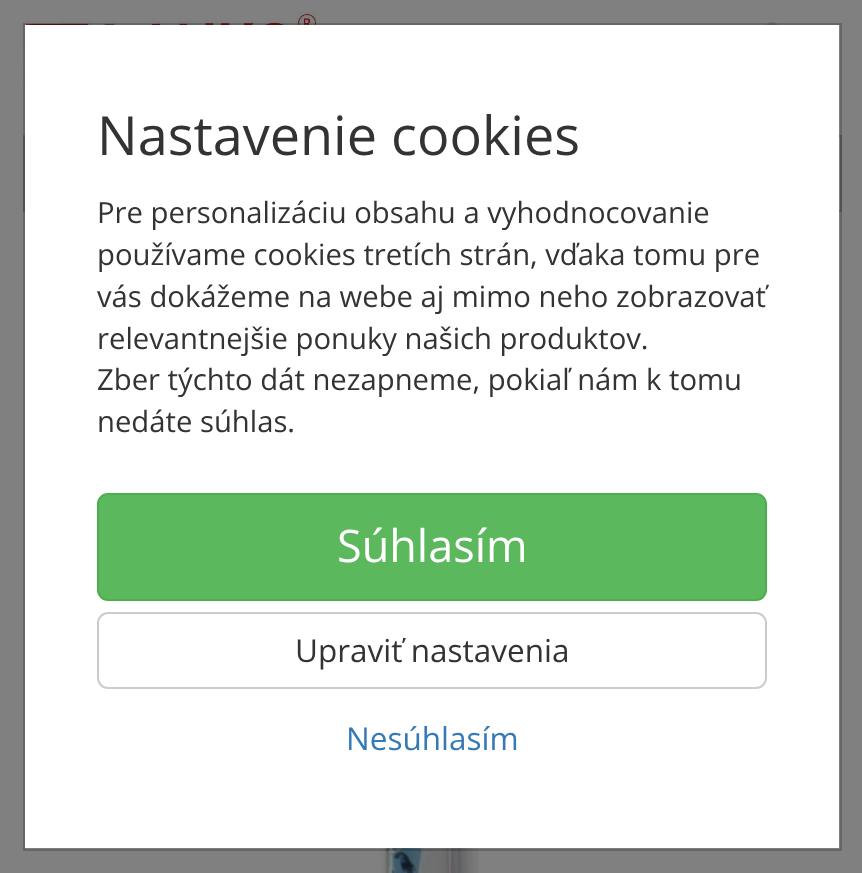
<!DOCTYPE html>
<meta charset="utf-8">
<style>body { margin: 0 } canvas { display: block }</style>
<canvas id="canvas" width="862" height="873"></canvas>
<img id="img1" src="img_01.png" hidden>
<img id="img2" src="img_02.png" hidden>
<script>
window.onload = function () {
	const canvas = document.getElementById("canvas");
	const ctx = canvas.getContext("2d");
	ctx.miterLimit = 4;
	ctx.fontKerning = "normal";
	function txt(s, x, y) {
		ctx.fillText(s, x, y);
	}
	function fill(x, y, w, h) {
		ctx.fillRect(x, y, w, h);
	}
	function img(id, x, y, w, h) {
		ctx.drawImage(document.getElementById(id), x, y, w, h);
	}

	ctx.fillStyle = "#808080";
	fill(0, 0, 862, 873);
	img("img1", 22, 12, 295, 79);
	ctx.fillStyle = "#747272";
	ctx.beginPath();
	ctx.ellipse(772, 38, 11, 16, 0, 0, Math.PI * 2);
	ctx.fill();
	ctx.strokeStyle = "#666666";
	ctx.lineWidth = 2;
	ctx.strokeRect(24, 136, 693, 75);
	ctx.strokeRect(719, 136, 122, 75);
	ctx.fillStyle = "#FFFFFF";
	fill(25, 25, 814, 823);
	img("img2", 375, 848, 104, 25);
	ctx.strokeStyle = "rgba(0, 0, 0, 0.2)";
	ctx.strokeRect(24, 24, 817, 826);
	ctx.fillStyle = "#5CB85C";
	ctx.beginPath();
	ctx.roundRect(98, 494, 668, 106, 10);
	ctx.fill();
	ctx.strokeStyle = "#4CAE4C";
	ctx.stroke();
	ctx.beginPath();
	ctx.roundRect(98, 613, 668, 75, 10);
	ctx.strokeStyle = "#CCCCCC";
	ctx.stroke();
	ctx.font = "54px Open Sans";
	ctx.fillStyle = "#333333";
	txt("Nastavenie cookies", 97, 155);
	ctx.font = "29.25px Open Sans";
	txt("Pre personalizáciu obsahu a vyhodnocovanie", 97, 223);
	txt("používame cookies tretích strán, vďaka tomu pre", 97, 265);
	txt("vás dokážeme na webe aj mimo neho zobrazovať", 97, 307);
	txt("relevantnejšie ponuky našich produktov.", 97, 349);
	txt("Zber týchto dát nezapneme, pokiaľ nám k tomu", 97, 390);
	txt("nedáte súhlas.", 97, 432);
	ctx.font = "45px Open Sans";
	ctx.fillStyle = "#FFFFFF";
	txt("Súhlasím", 337, 562);
	ctx.font = "31.5px Open Sans";
	ctx.fillStyle = "#333333";
	txt("Upraviť nastavenia", 295, 662);
	ctx.fillStyle = "#337AB7";
	txt("Nesúhlasím", 346, 750);
};
</script>
